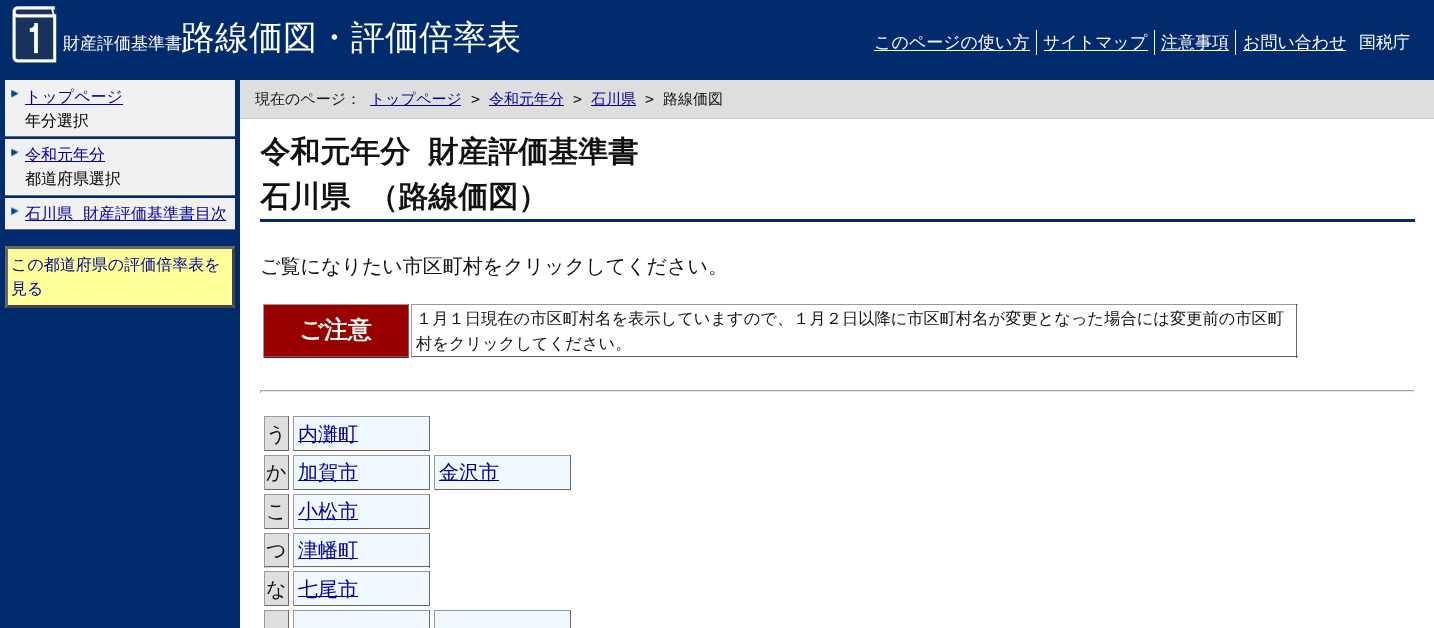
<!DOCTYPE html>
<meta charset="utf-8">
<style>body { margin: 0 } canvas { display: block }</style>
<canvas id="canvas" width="1434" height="628"></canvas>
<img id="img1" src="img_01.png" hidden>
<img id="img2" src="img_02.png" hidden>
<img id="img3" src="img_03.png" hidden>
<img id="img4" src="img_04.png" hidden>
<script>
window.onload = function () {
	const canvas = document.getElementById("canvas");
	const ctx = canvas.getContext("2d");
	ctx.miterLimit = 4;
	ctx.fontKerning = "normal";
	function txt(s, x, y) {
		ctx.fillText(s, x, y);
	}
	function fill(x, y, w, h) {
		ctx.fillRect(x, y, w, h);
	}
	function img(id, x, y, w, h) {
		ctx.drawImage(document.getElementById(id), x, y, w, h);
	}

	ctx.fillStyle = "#002C6D";
	fill(0, 0, 1434, 628);
	img("img1", 12, 6, 45, 57);
	ctx.fillStyle = "#FFFFFF";
	fill(1036, 30, 1, 25);
	fill(874, 50, 156, 1);
	fill(1154, 30, 1, 25);
	fill(1044, 50, 104, 1);
	fill(1235, 30, 1, 25);
	fill(1161, 50, 68, 1);
	fill(1243, 50, 103, 1);
	ctx.fillStyle = "#666666";
	fill(5, 136, 230, 1);
	ctx.fillStyle = "#F0F0F0";
	fill(5, 80, 230, 56);
	img("img2", 11, 90, 8, 8);
	ctx.fillStyle = "#000099";
	fill(25, 104, 98, 1);
	ctx.fillStyle = "#666666";
	fill(5, 195, 230, 1);
	ctx.fillStyle = "#F0F0F0";
	fill(5, 139, 230, 56);
	img("img3", 11, 148, 8, 9);
	ctx.fillStyle = "#000099";
	fill(25, 161, 80, 1);
	ctx.fillStyle = "#666666";
	fill(5, 229, 230, 1);
	ctx.fillStyle = "#F0F0F0";
	fill(5, 198, 230, 31);
	img("img4", 11, 207, 8, 8);
	ctx.fillStyle = "#000099";
	fill(25, 220, 201, 1);
	ctx.fillStyle = "#FFFF99";
	fill(5, 246, 230, 62);
	ctx.fillStyle = "#666666";
	ctx.beginPath();
	ctx.moveTo(5, 246);
	ctx.lineTo(235, 246);
	ctx.lineTo(232, 249);
	ctx.lineTo(8, 249);
	ctx.closePath();
	ctx.fill();
	ctx.fillStyle = "#444444";
	ctx.beginPath();
	ctx.moveTo(235, 246);
	ctx.lineTo(235, 308);
	ctx.lineTo(232, 305);
	ctx.lineTo(232, 249);
	ctx.closePath();
	ctx.fill();
	ctx.beginPath();
	ctx.moveTo(235, 308);
	ctx.lineTo(5, 308);
	ctx.lineTo(8, 305);
	ctx.lineTo(232, 305);
	ctx.closePath();
	ctx.fill();
	ctx.fillStyle = "#666666";
	ctx.beginPath();
	ctx.moveTo(5, 308);
	ctx.lineTo(5, 246);
	ctx.lineTo(8, 249);
	ctx.lineTo(8, 305);
	ctx.closePath();
	ctx.fill();
	ctx.fillStyle = "#FFFFFF";
	fill(240, 119, 1194, 509);
	ctx.fillStyle = "#DEDEDE";
	fill(240, 80, 1194, 38);
	ctx.fillStyle = "#CACACA";
	fill(240, 118, 1194, 1);
	ctx.fillStyle = "#000099";
	fill(370, 105, 91, 1);
	fill(489, 105, 75, 1);
	fill(591, 105, 45, 1);
	ctx.fillStyle = "#002C6D";
	fill(260, 219, 1155, 3);
	ctx.fillStyle = "#990000";
	fill(264, 305, 144, 53);
	ctx.fillStyle = "#999999";
	fill(263, 304, 146, 1);
	ctx.fillStyle = "#666666";
	fill(408, 304, 1, 54);
	fill(263, 356, 146, 1);
	ctx.fillStyle = "#999999";
	fill(263, 304, 1, 54);
	fill(411, 304, 887, 1);
	ctx.fillStyle = "#666666";
	fill(1296, 304, 1, 54);
	fill(411, 356, 887, 1);
	ctx.fillStyle = "#999999";
	fill(411, 304, 1, 54);
	ctx.fillStyle = "#9F9F9F";
	fill(260, 390, 1155, 1);
	ctx.fillStyle = "#EEEEEE";
	fill(1414, 390, 1, 3);
	fill(260, 391, 1155, 1);
	ctx.fillStyle = "#9F9F9F";
	fill(260, 390, 1, 3);
	ctx.fillStyle = "#DEDEDE";
	fill(265, 417, 23, 33);
	ctx.fillStyle = "#999999";
	fill(264, 416, 25, 1);
	ctx.fillStyle = "#666666";
	fill(288, 416, 1, 35);
	fill(264, 450, 25, 1);
	ctx.fillStyle = "#999999";
	fill(264, 416, 1, 35);
	ctx.fillStyle = "#F0F8FF";
	fill(294, 417, 135, 33);
	ctx.fillStyle = "#999999";
	fill(293, 416, 137, 1);
	ctx.fillStyle = "#666666";
	fill(429, 416, 1, 35);
	fill(293, 450, 137, 1);
	ctx.fillStyle = "#999999";
	fill(293, 416, 1, 35);
	ctx.fillStyle = "#000099";
	fill(298, 441, 60, 1);
	ctx.fillStyle = "#DEDEDE";
	fill(265, 456, 23, 33);
	ctx.fillStyle = "#999999";
	fill(264, 455, 25, 1);
	ctx.fillStyle = "#666666";
	fill(288, 455, 1, 35);
	fill(264, 489, 25, 1);
	ctx.fillStyle = "#999999";
	fill(264, 455, 1, 35);
	ctx.fillStyle = "#F0F8FF";
	fill(294, 456, 135, 33);
	ctx.fillStyle = "#999999";
	fill(293, 455, 137, 1);
	ctx.fillStyle = "#666666";
	fill(429, 455, 1, 35);
	fill(293, 489, 137, 1);
	ctx.fillStyle = "#999999";
	fill(293, 455, 1, 35);
	ctx.fillStyle = "#000099";
	fill(298, 480, 60, 1);
	ctx.fillStyle = "#F0F8FF";
	fill(435, 456, 135, 33);
	ctx.fillStyle = "#999999";
	fill(434, 455, 137, 1);
	ctx.fillStyle = "#666666";
	fill(570, 455, 1, 35);
	fill(434, 489, 137, 1);
	ctx.fillStyle = "#999999";
	fill(434, 455, 1, 35);
	ctx.fillStyle = "#000099";
	fill(439, 480, 60, 1);
	ctx.fillStyle = "#DEDEDE";
	fill(265, 495, 23, 33);
	ctx.fillStyle = "#999999";
	fill(264, 494, 25, 1);
	ctx.fillStyle = "#666666";
	fill(288, 494, 1, 35);
	fill(264, 528, 25, 1);
	ctx.fillStyle = "#999999";
	fill(264, 494, 1, 35);
	ctx.fillStyle = "#F0F8FF";
	fill(294, 495, 135, 33);
	ctx.fillStyle = "#999999";
	fill(293, 494, 137, 1);
	ctx.fillStyle = "#666666";
	fill(429, 494, 1, 35);
	fill(293, 528, 137, 1);
	ctx.fillStyle = "#999999";
	fill(293, 494, 1, 35);
	ctx.fillStyle = "#000099";
	fill(298, 519, 60, 1);
	ctx.fillStyle = "#DEDEDE";
	fill(265, 534, 23, 34);
	ctx.fillStyle = "#999999";
	fill(264, 533, 25, 1);
	ctx.fillStyle = "#666666";
	fill(288, 533, 1, 35);
	fill(264, 566, 25, 1);
	ctx.fillStyle = "#999999";
	fill(264, 533, 1, 35);
	ctx.fillStyle = "#F0F8FF";
	fill(294, 534, 135, 34);
	ctx.fillStyle = "#999999";
	fill(293, 533, 137, 1);
	ctx.fillStyle = "#666666";
	fill(429, 533, 1, 35);
	fill(293, 566, 137, 1);
	ctx.fillStyle = "#999999";
	fill(293, 533, 1, 35);
	ctx.fillStyle = "#000099";
	fill(298, 558, 60, 1);
	ctx.fillStyle = "#DEDEDE";
	fill(265, 572, 23, 33);
	ctx.fillStyle = "#999999";
	fill(264, 571, 25, 1);
	ctx.fillStyle = "#666666";
	fill(288, 571, 1, 35);
	fill(264, 605, 25, 1);
	ctx.fillStyle = "#999999";
	fill(264, 571, 1, 35);
	ctx.fillStyle = "#F0F8FF";
	fill(294, 572, 135, 33);
	ctx.fillStyle = "#999999";
	fill(293, 571, 137, 1);
	ctx.fillStyle = "#666666";
	fill(429, 571, 1, 35);
	fill(293, 605, 137, 1);
	ctx.fillStyle = "#999999";
	fill(293, 571, 1, 35);
	ctx.fillStyle = "#000099";
	fill(298, 596, 60, 1);
	ctx.fillStyle = "#DEDEDE";
	fill(265, 611, 23, 17);
	ctx.fillStyle = "#999999";
	fill(264, 610, 25, 1);
	ctx.fillStyle = "#666666";
	fill(288, 610, 1, 18);
	ctx.fillStyle = "#999999";
	fill(264, 610, 1, 18);
	ctx.fillStyle = "#F0F8FF";
	fill(294, 611, 135, 17);
	ctx.fillStyle = "#999999";
	fill(293, 610, 137, 1);
	ctx.fillStyle = "#666666";
	fill(429, 610, 1, 18);
	ctx.fillStyle = "#999999";
	fill(293, 610, 1, 18);
	ctx.fillStyle = "#F0F8FF";
	fill(435, 611, 135, 17);
	ctx.fillStyle = "#999999";
	fill(434, 610, 137, 1);
	ctx.fillStyle = "#666666";
	fill(570, 610, 1, 18);
	ctx.fillStyle = "#999999";
	fill(434, 610, 1, 18);
	ctx.font = "500 17px WenQuanYi Zen Hei";
	ctx.fillStyle = "#FFFFFF";
	txt("財産評価基準書", 63, 49);
	ctx.font = "500 34px WenQuanYi Zen Hei";
	txt("路線価図・評価倍率表", 181, 49);
	ctx.font = "500 17px WenQuanYi Zen Hei";
	txt("このページの使い方", 874, 48);
	txt("サイトマップ", 1043, 48);
	txt("注意事項", 1161, 48);
	txt("お問い合わせ", 1243, 48);
	txt("国税庁", 1359, 48);
	ctx.font = "500 16px WenQuanYi Zen Hei";
	ctx.fillStyle = "#000099";
	txt("トップページ", 25, 102);
	ctx.fillStyle = "#000000";
	txt("年分選択", 25, 126);
	ctx.fillStyle = "#000099";
	txt("令和元年分", 25, 160);
	ctx.fillStyle = "#000000";
	txt("都道府県選択", 25, 184);
	ctx.fillStyle = "#000099";
	txt("石川県", 25, 219);
	txt("財産評価基準書目次", 83, 219);
	txt("この都道府県の評価倍率表を", 11, 270);
	txt("見る", 11, 294);
	ctx.font = "500 15px WenQuanYi Zen Hei";
	ctx.fillStyle = "#111111";
	txt("現在のページ：", 255, 104);
	ctx.fillStyle = "#000099";
	txt("トップページ", 370, 104);
	ctx.font = "15px DejaVu Sans Mono";
	ctx.fillStyle = "#111111";
	txt(">", 471, 104);
	ctx.font = "500 15px WenQuanYi Zen Hei";
	ctx.fillStyle = "#000099";
	txt("令和元年分", 489, 104);
	ctx.font = "15px DejaVu Sans Mono";
	ctx.fillStyle = "#111111";
	txt(">", 573, 104);
	ctx.font = "500 15px WenQuanYi Zen Hei";
	ctx.fillStyle = "#000099";
	txt("石川県", 591, 104);
	ctx.font = "15px DejaVu Sans Mono";
	ctx.fillStyle = "#111111";
	txt(">", 645, 104);
	ctx.font = "500 15px WenQuanYi Zen Hei";
	txt("路線価図", 663, 104);
	ctx.wordSpacing = "9px";
	ctx.font = "bold 30px WenQuanYi Zen Hei";
	txt("令和元年分 財産評価基準書", 260, 162);
	txt("石川県 （路線価図）", 260, 207);
	ctx.wordSpacing = "0px";
	ctx.font = "500 20px WenQuanYi Zen Hei";
	txt("ご覧になりたい市区町村をクリックしてください。", 260, 273);
	ctx.font = "bold 24px WenQuanYi Zen Hei";
	ctx.fillStyle = "#FFFFFF";
	txt("ご注意", 299, 338);
	ctx.font = "500 16.25px WenQuanYi Zen Hei";
	ctx.fillStyle = "#111111";
	txt("１月１日現在の市区町村名を表示していますので、１月２日以降に市区町村名が変更となった場合には変更前の市区町", 416, 324);
	txt("村をクリックしてください。", 416, 349);
	ctx.font = "500 20px WenQuanYi Zen Hei";
	txt("う", 266, 441);
	ctx.fillStyle = "#000099";
	txt("内灘町", 298, 441);
	ctx.fillStyle = "#111111";
	txt("か", 266, 479);
	ctx.fillStyle = "#000099";
	txt("加賀市", 298, 479);
	txt("金沢市", 439, 479);
	ctx.fillStyle = "#111111";
	txt("こ", 266, 518);
	ctx.fillStyle = "#000099";
	txt("小松市", 298, 518);
	ctx.fillStyle = "#111111";
	txt("つ", 266, 557);
	ctx.fillStyle = "#000099";
	txt("津幡町", 298, 557);
	ctx.fillStyle = "#111111";
	txt("な", 266, 596);
	ctx.fillStyle = "#000099";
	txt("七尾市", 298, 596);
};
</script>
